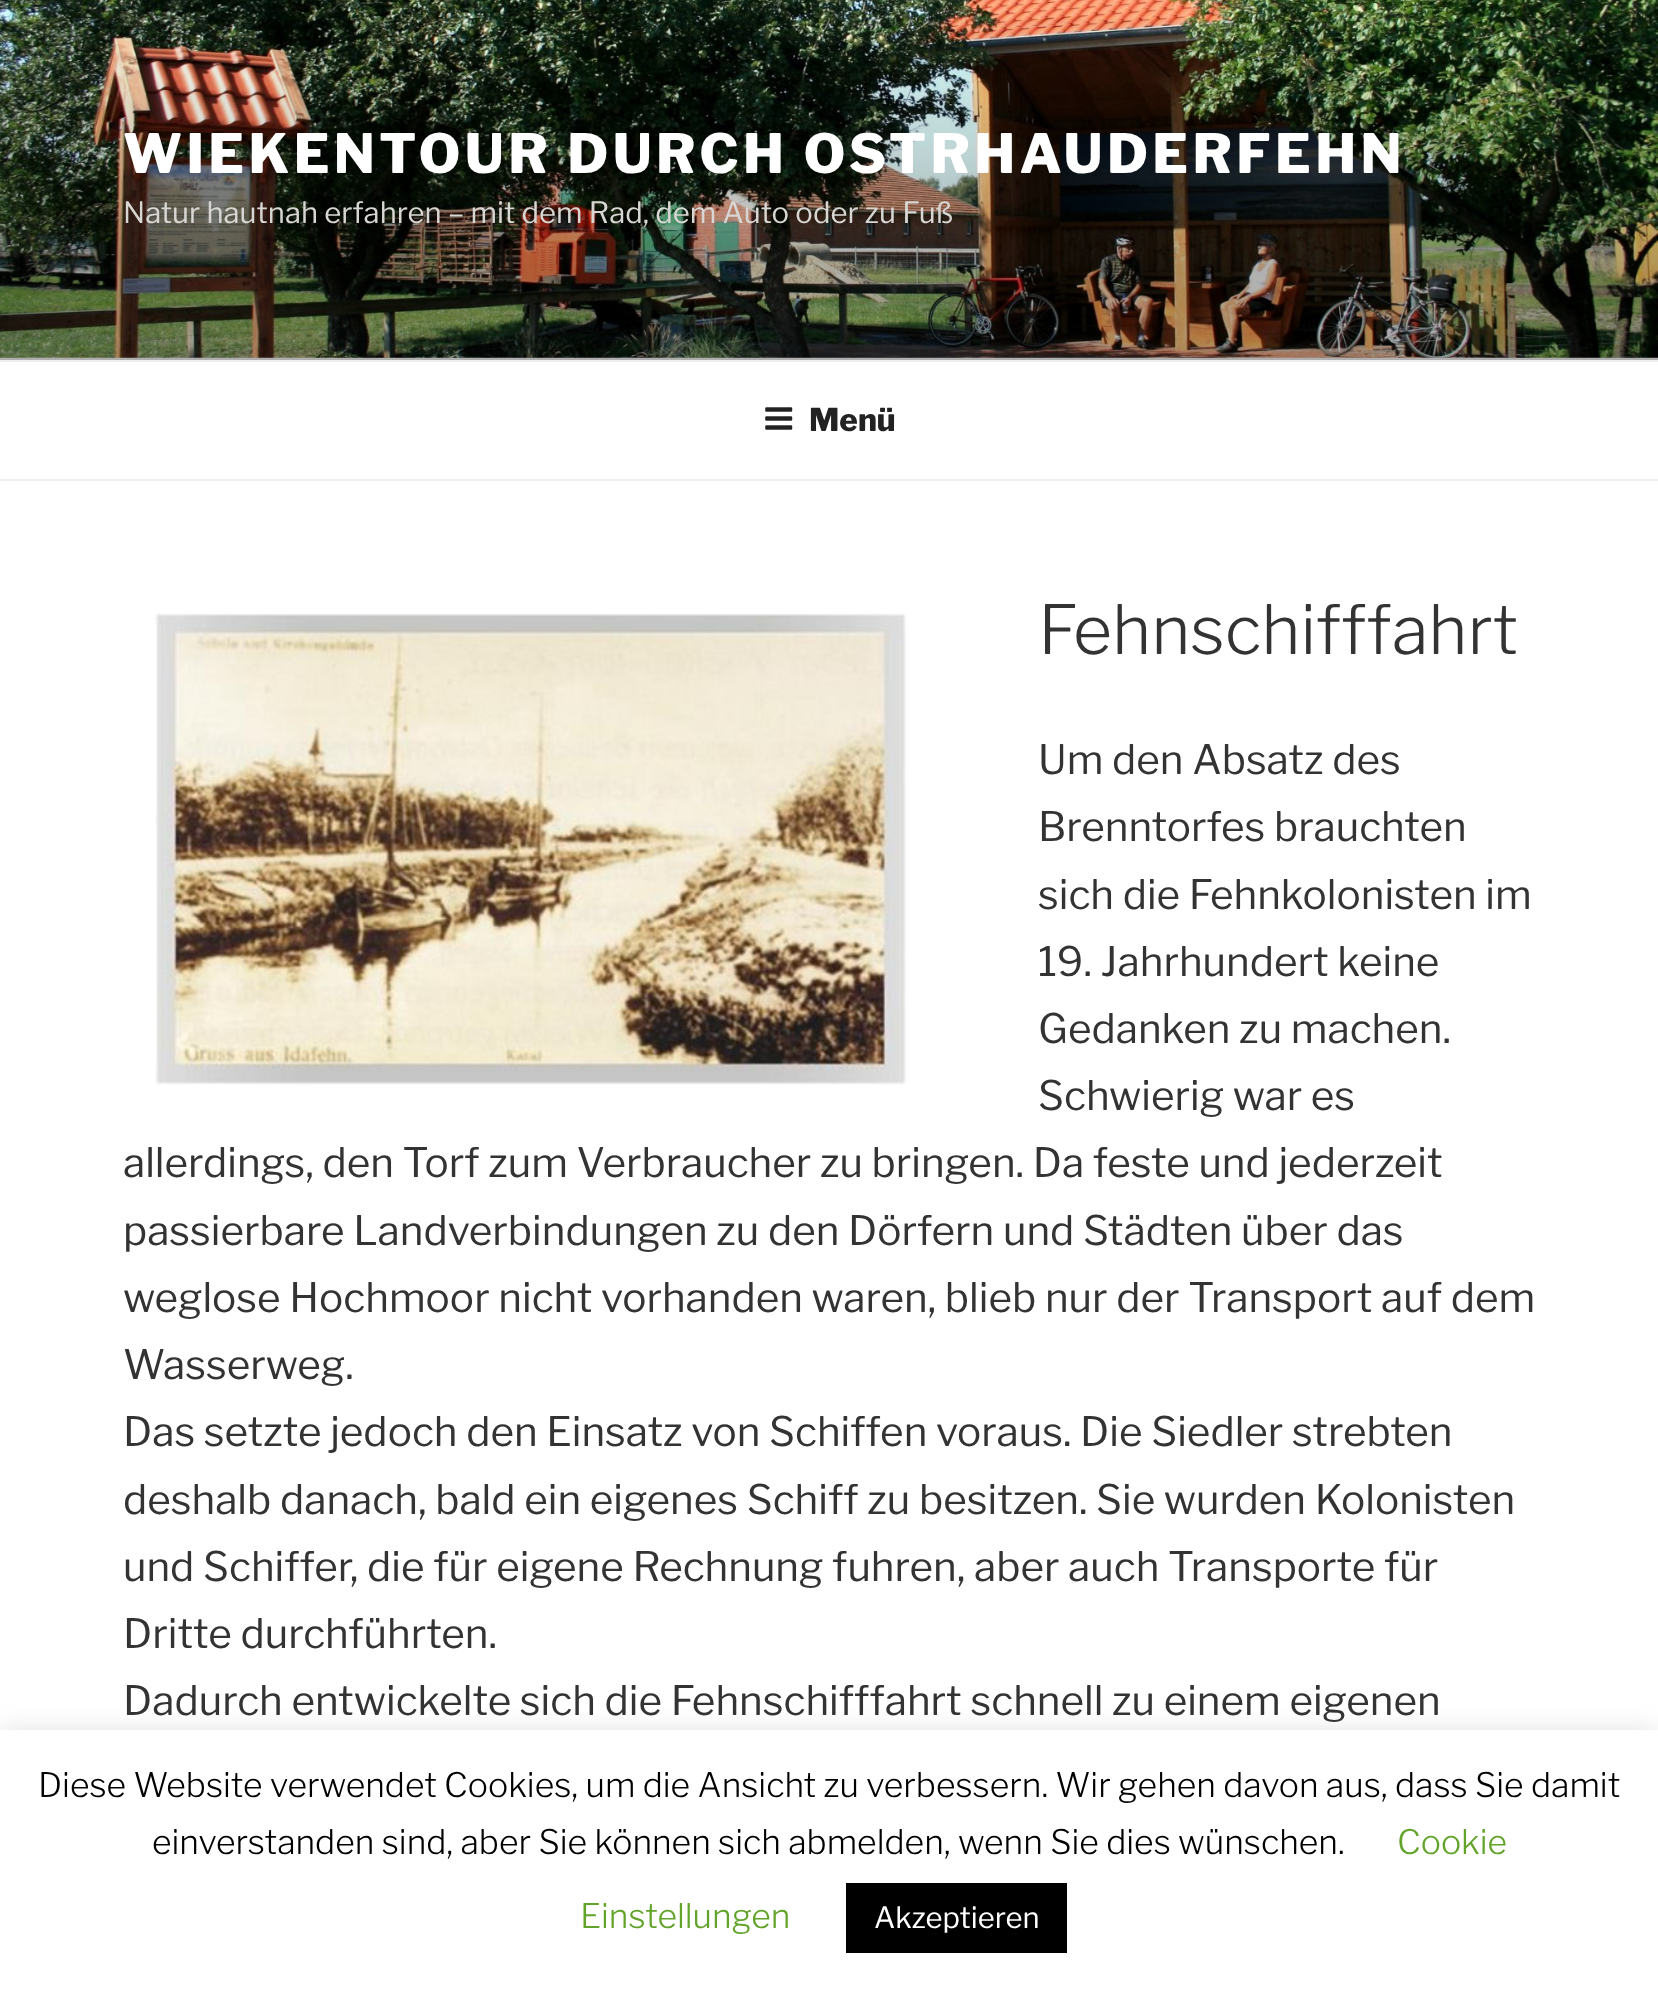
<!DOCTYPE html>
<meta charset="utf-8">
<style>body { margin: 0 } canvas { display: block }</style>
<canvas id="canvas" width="1658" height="1991"></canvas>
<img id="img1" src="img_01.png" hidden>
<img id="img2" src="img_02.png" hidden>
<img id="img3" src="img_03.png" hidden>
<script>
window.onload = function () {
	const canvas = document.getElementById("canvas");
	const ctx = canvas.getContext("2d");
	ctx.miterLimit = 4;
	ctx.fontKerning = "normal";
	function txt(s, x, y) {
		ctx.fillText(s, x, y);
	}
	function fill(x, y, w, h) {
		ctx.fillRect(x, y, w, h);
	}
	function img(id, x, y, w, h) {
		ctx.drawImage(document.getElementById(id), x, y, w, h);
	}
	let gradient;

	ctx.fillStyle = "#FFFFFF";
	fill(0, 0, 1658, 1991);
	ctx.fillStyle = "#FAFAFA";
	fill(0, 357, 1658, 3);
	img("img1", 0, 0, 1658, 358);
	gradient = ctx.createLinearGradient(829, 0, 829, 360);
	gradient.addColorStop(0, "rgba(0, 0, 0, 0)");
	gradient.addColorStop(0.75, "rgba(0, 0, 0, 0.3)");
	gradient.addColorStop(1, "rgba(0, 0, 0, 0.3)");
	ctx.fillStyle = gradient;
	fill(0, 19, 1658, 341);
	ctx.fillStyle = "#EEEEEE";
	fill(0, 360, 1658, 2);
	fill(0, 479, 1658, 2);
	img("img2", 765, 407, 28, 23);
	img("img3", 155, 613, 752, 472);
	ctx.fillStyle = "rgba(172, 171, 171, 0.3)";
	ctx.filter = "blur(11px)";
	ctx.beginPath();
	ctx.rect(0, 1728, 1658, 261);
	ctx.fill();
	ctx.filter = "none";
	ctx.fillStyle = "#FFFFFF";
	fill(0, 1730, 1658, 261);
	ctx.fillStyle = "#000000";
	fill(846, 1883, 221, 70);
	ctx.letterSpacing = "4.3px";
	ctx.font = "100 54px Libre Franklin";
	ctx.fillStyle = "#FFFFFF";
	txt("WIEKENTOUR DURCH OSTRHAUDERFEHN", 123, 173);
	ctx.letterSpacing = "0px";
	ctx.font = "100 29.25px 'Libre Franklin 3'";
	ctx.fillStyle = "#D7D6D3";
	txt("Natur hautnah erfahren – mit dem Rad, dem Auto oder zu Fuß", 123, 223);
	ctx.font = "100 31.5px Libre Franklin";
	ctx.fillStyle = "#222222";
	txt("Menü", 809, 431);
	ctx.font = "100 67.5px 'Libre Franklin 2'";
	ctx.fillStyle = "#333333";
	txt("Fehnschifffahrt", 1038, 654);
	ctx.font = "100 40.5px 'Libre Franklin 3'";
	txt("Um den Absatz des", 1038, 774);
	txt("Brenntorfes brauchten", 1038, 841);
	txt("sich die Fehnkolonisten im", 1038, 909);
	txt("19. Jahrhundert keine", 1038, 976);
	txt("Gedanken zu machen.", 1038, 1043);
	txt("Schwierig war es", 1038, 1110);
	txt("allerdings, den Torf zum Verbraucher zu bringen. Da feste und jederzeit", 123, 1177);
	txt("passierbare Landverbindungen zu den Dörfern und Städten über das", 123, 1245);
	txt("weglose Hochmoor nicht vorhanden waren, blieb nur der Transport auf dem", 123, 1312);
	txt("Wasserweg.", 123, 1379);
	txt("Das setzte jedoch den Einsatz von Schiffen voraus. Die Siedler strebten", 123, 1446);
	txt("deshalb danach, bald ein eigenes Schiff zu besitzen. Sie wurden Kolonisten", 123, 1514);
	txt("und Schiffer, die für eigene Rechnung fuhren, aber auch Transporte für", 123, 1581);
	txt("Dritte durchführten.", 123, 1648);
	txt("Dadurch entwickelte sich die Fehnschifffahrt schnell zu einem eigenen", 123, 1715);
	ctx.font = "100 33.75px 'Libre Franklin 2'";
	ctx.fillStyle = "#000000";
	txt("Diese Website verwendet Cookies, um die Ansicht zu verbessern. Wir gehen davon aus, dass Sie damit", 38, 1797);
	txt("einverstanden sind, aber Sie können sich abmelden, wenn Sie dies wünschen.", 152, 1854);
	ctx.fillStyle = "#62A329";
	txt("Cookie", 1397, 1854);
	txt("Einstellungen", 580, 1928);
	ctx.font = "100 29.25px 'Libre Franklin 3'";
	ctx.fillStyle = "#FFFFFF";
	txt("Akzeptieren", 874, 1928);
};
</script>
